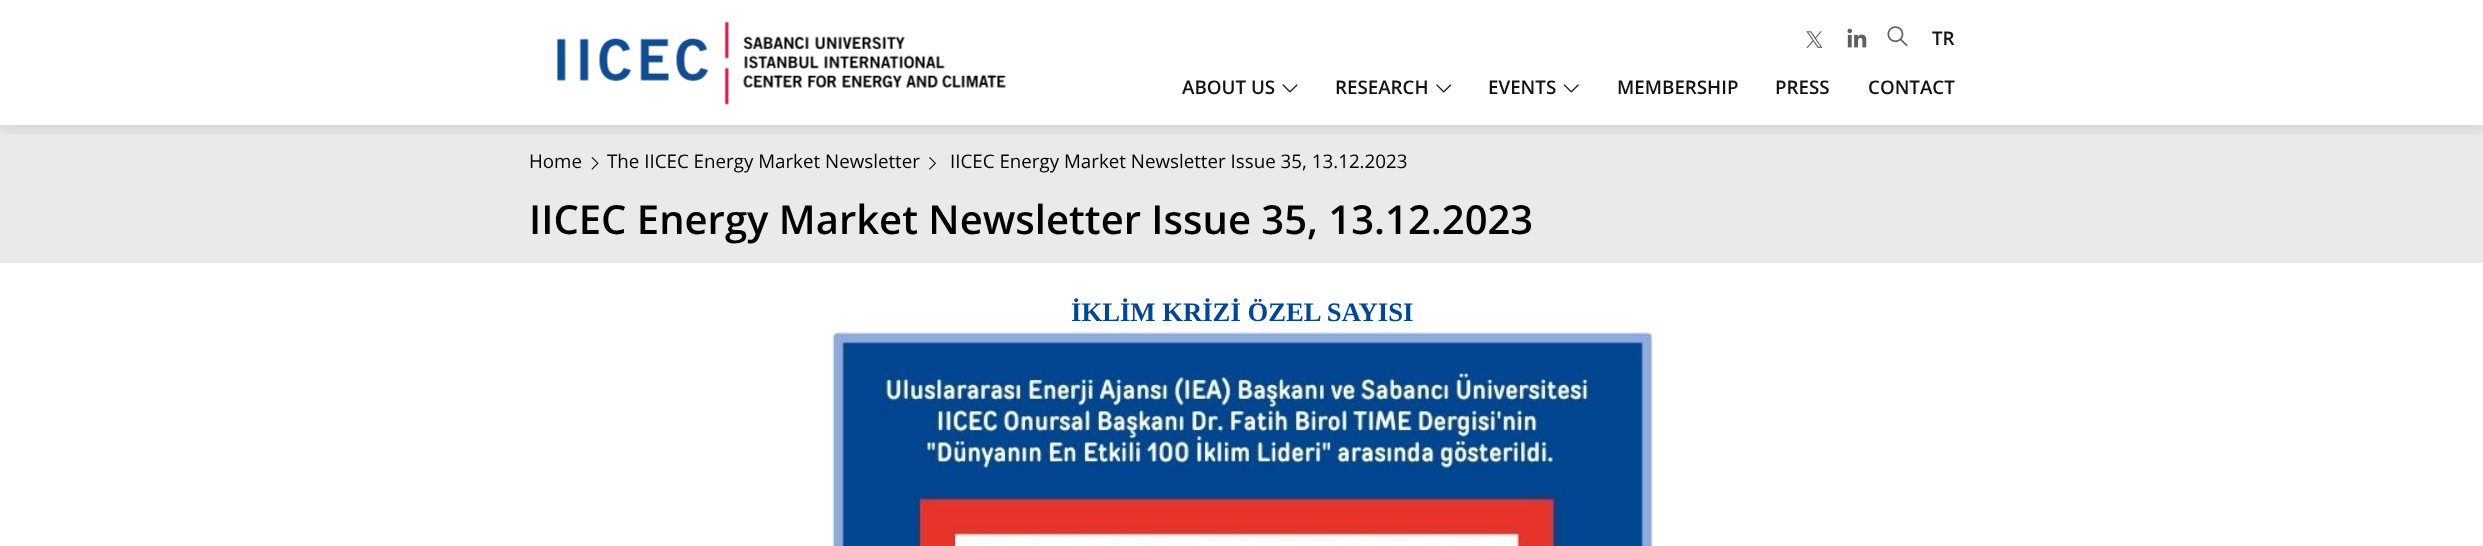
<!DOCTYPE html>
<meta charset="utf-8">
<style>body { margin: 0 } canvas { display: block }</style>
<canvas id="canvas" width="2483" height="546"></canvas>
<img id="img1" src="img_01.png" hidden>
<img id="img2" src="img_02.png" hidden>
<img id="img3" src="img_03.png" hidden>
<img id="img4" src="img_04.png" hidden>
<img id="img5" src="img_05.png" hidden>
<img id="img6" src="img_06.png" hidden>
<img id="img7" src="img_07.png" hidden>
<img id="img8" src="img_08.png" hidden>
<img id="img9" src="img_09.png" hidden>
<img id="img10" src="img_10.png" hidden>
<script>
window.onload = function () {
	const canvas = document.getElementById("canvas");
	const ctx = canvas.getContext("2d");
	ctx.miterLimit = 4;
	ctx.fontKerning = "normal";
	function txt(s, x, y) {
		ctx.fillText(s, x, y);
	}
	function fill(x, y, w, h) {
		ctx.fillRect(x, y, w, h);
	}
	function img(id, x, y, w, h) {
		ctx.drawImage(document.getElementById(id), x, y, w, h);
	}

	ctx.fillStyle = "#FFFFFF";
	fill(0, 0, 2483, 546);
	ctx.fillStyle = "#EAEAEA";
	fill(0, 125, 2483, 138);
	ctx.save();
	ctx.beginPath();
	ctx.rect(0, 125, 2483, 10);
	ctx.clip();
	ctx.fillStyle = "rgba(0, 0, 0, 0.1)";
	ctx.filter = "blur(7.5px)";
	ctx.beginPath();
	ctx.rect(0, 4, 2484, 125);
	ctx.fill();
	ctx.filter = "none";
	ctx.restore();
	img("img1", 556, 21, 450, 84);
	img("img2", 1806, 31, 17, 17);
	img("img3", 1847, 28, 20, 20);
	img("img4", 1887, 26, 21, 21);
	img("img5", 1282, 84, 16, 9);
	img("img6", 1436, 84, 16, 9);
	img("img7", 1563, 84, 16, 9);
	img("img8", 591, 157, 8, 13);
	img("img9", 929, 157, 7, 13);
	img("img10", 832, 332, 821, 214);
	ctx.font = "600 18.75px Open Sans";
	ctx.fillStyle = "#121212";
	txt("TR", 1932, 45);
	txt("ABOUT US", 1182, 94);
	txt("RESEARCH", 1335, 94);
	txt("EVENTS", 1488, 94);
	txt("MEMBERSHIP", 1617, 94);
	txt("PRESS", 1775, 94);
	txt("CONTACT", 1868, 94);
	ctx.font = "18.75px Open Sans";
	ctx.fillStyle = "#000000";
	txt("Home", 529, 168);
	txt("The IICEC Energy Market Newsletter", 607, 168);
	txt("IICEC Energy Market Newsletter Issue 35, 13.12.2023", 950, 168);
	ctx.font = "600 40px Open Sans";
	txt("IICEC Energy Market Newsletter Issue 35, 13.12.2023", 529, 234);
	ctx.font = "bold 26.7px Liberation Serif";
	ctx.fillStyle = "#024691";
	txt("İKLİM KRİZİ ÖZEL SAYISI", 1071, 321);
};
</script>
